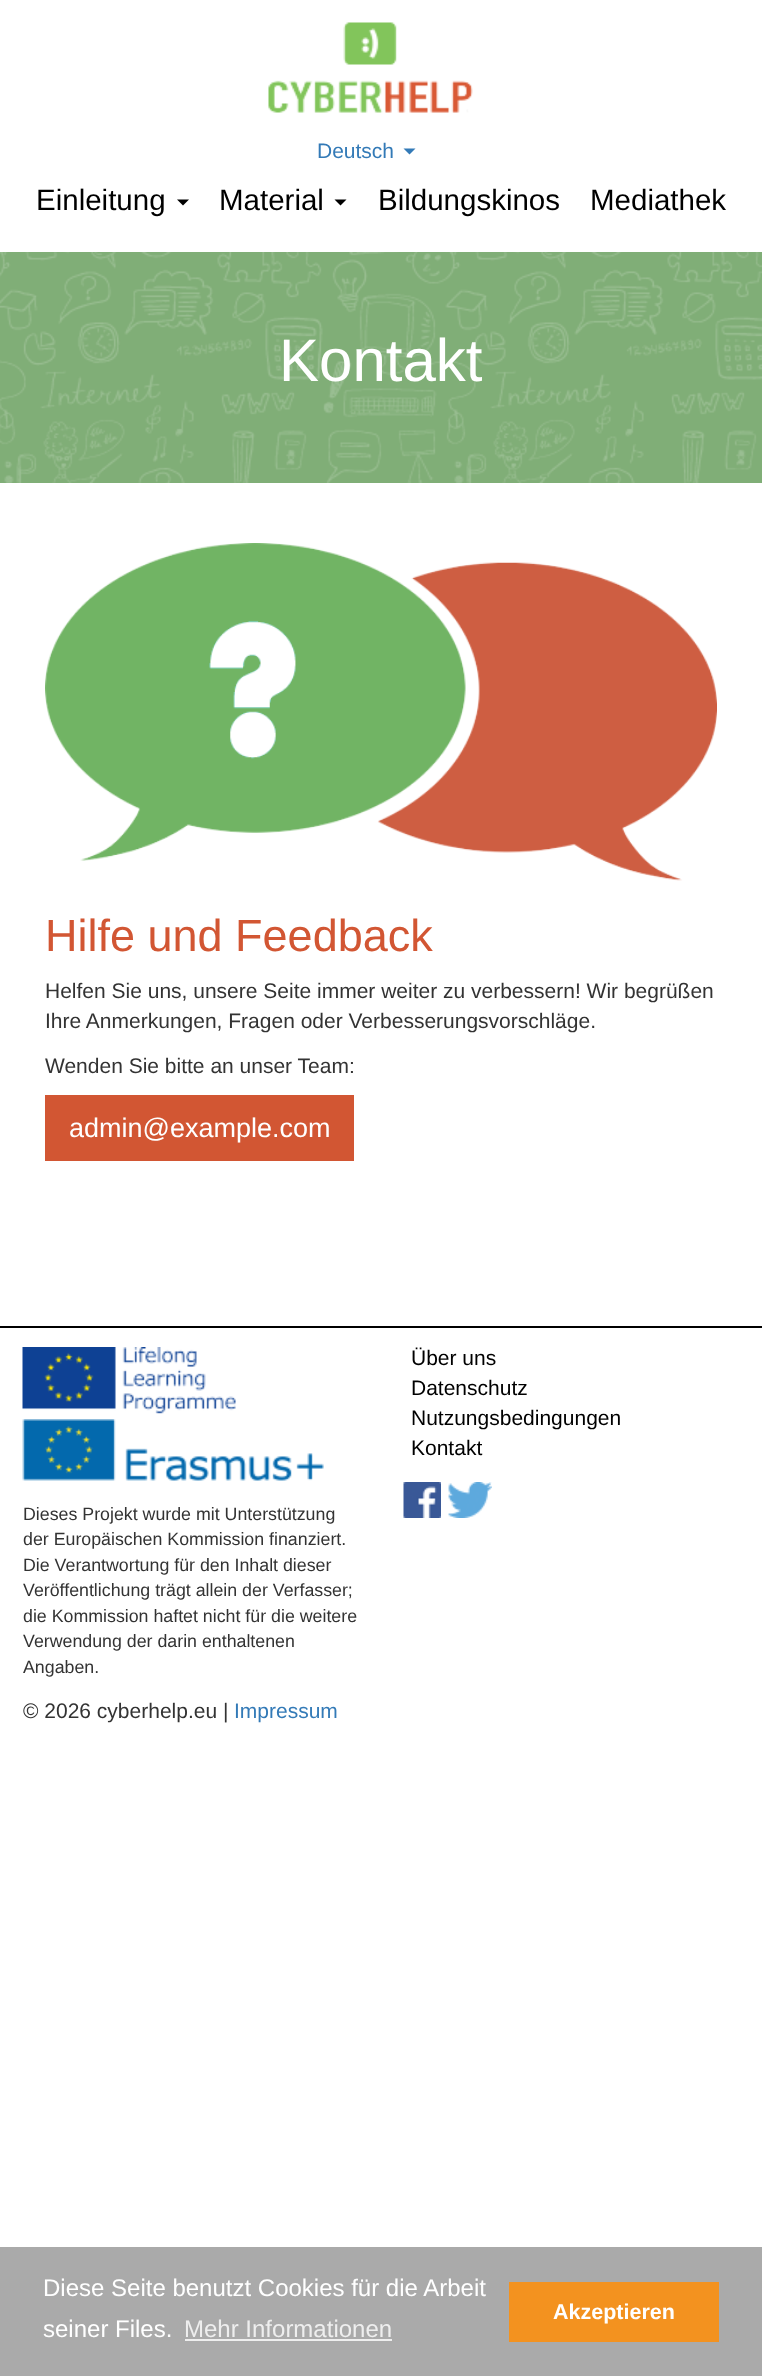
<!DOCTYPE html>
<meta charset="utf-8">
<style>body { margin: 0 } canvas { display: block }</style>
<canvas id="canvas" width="762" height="2376"></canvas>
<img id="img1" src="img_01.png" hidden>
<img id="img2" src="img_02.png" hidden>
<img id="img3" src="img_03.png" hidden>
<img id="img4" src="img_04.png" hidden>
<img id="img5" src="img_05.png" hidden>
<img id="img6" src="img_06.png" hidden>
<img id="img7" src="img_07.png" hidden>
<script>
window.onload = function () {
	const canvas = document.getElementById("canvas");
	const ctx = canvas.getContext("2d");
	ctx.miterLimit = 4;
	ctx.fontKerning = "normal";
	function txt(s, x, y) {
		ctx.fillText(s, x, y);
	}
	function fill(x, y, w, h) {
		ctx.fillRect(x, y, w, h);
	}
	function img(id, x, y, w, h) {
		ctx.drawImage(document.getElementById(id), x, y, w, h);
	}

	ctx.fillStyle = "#FFFFFF";
	fill(0, 0, 762, 2376);
	img("img1", 268, 22, 205, 91);
	ctx.fillStyle = "#337AB7";
	ctx.beginPath();
	ctx.moveTo(403.5, 148.5);
	ctx.lineTo(415.5, 148.5);
	ctx.lineTo(409.5, 154.5);
	ctx.closePath();
	ctx.fill();
	ctx.fillStyle = "#000000";
	ctx.beginPath();
	ctx.moveTo(177, 199.5);
	ctx.lineTo(189, 199.5);
	ctx.lineTo(183, 205.5);
	ctx.closePath();
	ctx.fill();
	ctx.beginPath();
	ctx.moveTo(334.5, 199.5);
	ctx.lineTo(346.5, 199.5);
	ctx.lineTo(340.5, 205.5);
	ctx.closePath();
	ctx.fill();
	ctx.fillStyle = "#80AE77";
	fill(0, 252, 762, 231);
	img("img2", 0, 252, 762, 231);
	img("img3", 45, 543, 672, 338);
	ctx.fillStyle = "#D25633";
	fill(45, 1095, 309, 66);
	ctx.fillStyle = "#000000";
	fill(0, 1326, 762, 2);
	img("img4", 403, 1482, 38, 36);
	img("img5", 448, 1482, 44, 36);
	img("img6", 22, 1347, 214, 67);
	img("img7", 22, 1419, 302, 62);
	ctx.fillStyle = "#AAAAAA";
	fill(0, 2247, 762, 129);
	ctx.fillStyle = "#EEEEEE";
	fill(185, 2339, 207, 2);
	ctx.fillStyle = "#F3921F";
	fill(509, 2282, 210, 60);
	ctx.font = "21px Liberation Sans";
	ctx.fillStyle = "#337AB7";
	txt("Deutsch", 317, 158);
	ctx.font = "29.5px Liberation Sans";
	ctx.fillStyle = "#000000";
	txt("Einleitung", 36, 210);
	txt("Мaterial", 219, 210);
	txt("Bildungskinos", 378, 210);
	txt("Mediathek", 590, 210);
	ctx.font = "60px Liberation Sans";
	ctx.fillStyle = "#FFFFFF";
	txt("Kontakt", 279, 381);
	ctx.font = "45px Liberation Sans";
	ctx.fillStyle = "#D25633";
	txt("Hilfe und Feedback", 45, 951);
	ctx.font = "21px Liberation Sans";
	ctx.fillStyle = "#333333";
	txt("Helfen Sie uns, unsere Seite immer weiter zu verbessern! Wir begrüßen", 45, 998);
	txt("Ihre Anmerkungen, Fragen oder Verbesserungsvorschläge.", 45, 1028);
	txt("Wenden Sie bitte an unser Team:", 45, 1073);
	ctx.font = "27px Liberation Sans";
	ctx.fillStyle = "#FFFFFF";
	txt("admin@example.com", 69, 1137);
	ctx.font = "21px Liberation Sans";
	ctx.fillStyle = "#000000";
	txt("Über uns", 411, 1365);
	txt("Datenschutz", 411, 1395);
	txt("Nutzungsbedingungen", 411, 1425);
	txt("Kontakt", 411, 1455);
	ctx.font = "17.8px Liberation Sans";
	ctx.fillStyle = "#333333";
	txt("Dieses Projekt wurde mit Unterstützung", 23, 1520);
	txt("der Europäischen Kommission finanziert.", 23, 1545);
	txt("Die Verantwortung für den Inhalt dieser", 23, 1571);
	txt("Veröffentlichung trägt allein der Verfasser;", 23, 1596);
	txt("die Kommission haftet nicht für die weitere", 23, 1622);
	txt("Verwendung der darin enthaltenen", 23, 1647);
	txt("Angaben.", 23, 1673);
	ctx.font = "21px Liberation Sans";
	txt("© 2026 cyberhelp.eu |", 23, 1718);
	ctx.fillStyle = "#337AB7";
	txt("Impressum", 234, 1718);
	ctx.font = "24px Liberation Sans";
	ctx.fillStyle = "#FFFFFF";
	txt("Diese Seite benutzt Cookies für die Arbeit", 43, 2296);
	txt("seiner Files.", 43, 2337);
	ctx.fillStyle = "#EEEEEE";
	txt("Mehr Informationen", 184, 2337);
	ctx.font = "bold 21.5px Liberation Sans";
	ctx.fillStyle = "#FFFFFF";
	txt("Akzeptieren", 553, 2319);
};
</script>
